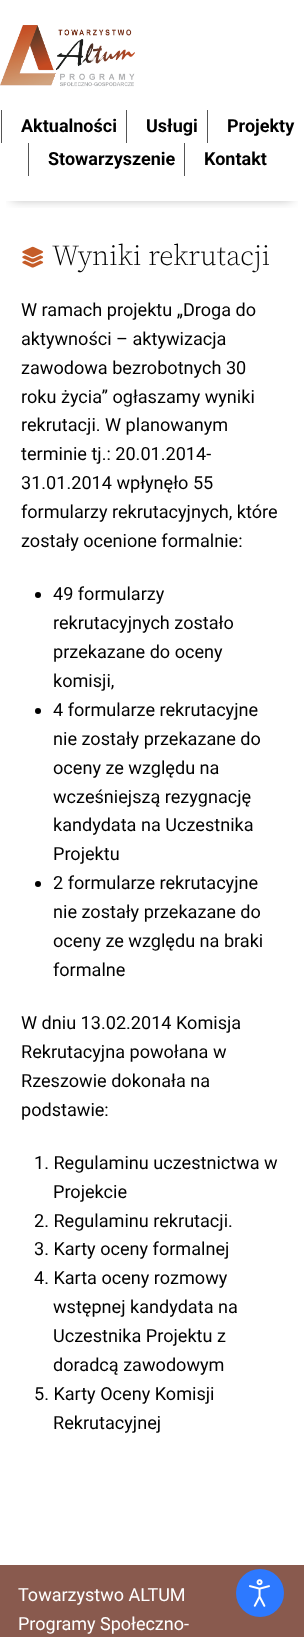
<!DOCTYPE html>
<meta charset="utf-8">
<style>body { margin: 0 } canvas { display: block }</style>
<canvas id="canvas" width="304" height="1637"></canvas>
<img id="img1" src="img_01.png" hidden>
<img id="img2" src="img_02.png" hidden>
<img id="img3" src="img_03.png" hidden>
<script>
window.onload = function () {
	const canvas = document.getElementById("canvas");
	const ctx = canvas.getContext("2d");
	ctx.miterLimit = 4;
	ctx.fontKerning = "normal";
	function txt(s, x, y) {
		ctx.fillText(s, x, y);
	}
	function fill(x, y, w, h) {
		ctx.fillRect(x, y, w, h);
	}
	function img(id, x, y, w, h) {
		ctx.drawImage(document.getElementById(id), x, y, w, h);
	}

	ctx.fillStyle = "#FFFFFF";
	fill(0, 0, 304, 1637);
	ctx.save();
	ctx.beginPath();
	ctx.rect(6, 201, 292, 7);
	ctx.clip();
	ctx.fillStyle = "rgba(0, 0, 0, 0.33)";
	ctx.filter = "blur(6px)";
	ctx.beginPath();
	ctx.rect(12, 22, 280, 177);
	ctx.fill();
	ctx.filter = "none";
	ctx.restore();
	img("img1", 0, 25, 135, 62);
	ctx.fillStyle = "#555555";
	fill(1, 110, 1, 33);
	fill(126, 110, 1, 33);
	fill(207, 110, 1, 33);
	fill(28, 143, 1, 33);
	fill(184, 143, 1, 33);
	img("img2", 22, 246, 22, 22);
	ctx.fillStyle = "#000000";
	ctx.beginPath();
	ctx.arc(38, 595, 3, 0, Math.PI * 2);
	ctx.fill();
	ctx.beginPath();
	ctx.arc(38, 711, 3, 0, Math.PI * 2);
	ctx.fill();
	ctx.beginPath();
	ctx.arc(38, 884, 3, 0, Math.PI * 2);
	ctx.fill();
	ctx.fillStyle = "#895A4E";
	fill(0, 1565, 304, 72);
	ctx.fillStyle = "#2D79FF";
	ctx.beginPath();
	ctx.arc(260, 1593, 24, 0, Math.PI * 2);
	ctx.fill();
	img("img3", 249, 1579, 21, 28);
	ctx.font = "bold 18px Roboto";
	ctx.fillStyle = "#000000";
	txt("Aktualności", 21, 132);
	txt("Usługi", 146, 132);
	txt("Projekty", 227, 132);
	txt("Stowarzyszenie", 48, 165);
	txt("Kontakt", 204, 165);
	ctx.font = "300 28.75px 'Source Serif 4'";
	txt("Wyniki rekrutacji", 52, 265);
	ctx.font = "18.1px Roboto";
	txt("W ramach projektu „Droga do", 21, 316);
	txt("aktywności – aktywizacja", 21, 345);
	txt("zawodowa bezrobotnych 30", 21, 374);
	txt("roku życia” ogłaszamy wyniki", 21, 403);
	txt("rekrutacji. W planowanym", 21, 431);
	txt("terminie tj.: 20.01.2014-", 21, 460);
	txt("31.01.2014 wpłynęło 55", 21, 489);
	txt("formularzy rekrutacyjnych, które", 21, 518);
	txt("zostały ocenione formalnie:", 21, 547);
	txt("49 formularzy", 53, 600);
	txt("rekrutacyjnych zostało", 53, 629);
	txt("przekazane do oceny", 53, 658);
	txt("komisji,", 53, 687);
	txt("4 formularze rekrutacyjne", 53, 716);
	txt("nie zostały przekazane do", 53, 745);
	txt("oceny ze względu na", 53, 774);
	txt("wcześniejszą rezygnację", 53, 803);
	txt("kandydata na Uczestnika", 53, 831);
	txt("Projektu", 53, 860);
	txt("2 formularze rekrutacyjne", 53, 889);
	txt("nie zostały przekazane do", 53, 918);
	txt("oceny ze względu na braki", 53, 947);
	txt("formalne", 53, 976);
	txt("W dniu 13.02.2014 Komisja", 21, 1029);
	txt("Rekrutacyjna powołana w", 21, 1058);
	txt("Rzeszowie dokonała na", 21, 1087);
	txt("podstawie:", 21, 1116);
	txt("1. Regulaminu uczestnictwa w", 34, 1169);
	txt("Projekcie", 53, 1198);
	txt("2. Regulaminu rekrutacji.", 34, 1227);
	txt("3. Karty oceny formalnej", 34, 1255);
	txt("4. Karta oceny rozmowy", 34, 1284);
	txt("wstępnej kandydata na", 53, 1313);
	txt("Uczestnika Projektu z", 53, 1342);
	txt("doradcą zawodowym", 53, 1371);
	txt("5. Karty Oceny Komisji", 34, 1400);
	txt("Rekrutacyjnej", 53, 1429);
	ctx.font = "18px Roboto";
	ctx.fillStyle = "#FFFFFF";
	txt("Towarzystwo ALTUM", 18, 1601);
	txt("Programy Społeczno-", 18, 1630);
};
</script>
